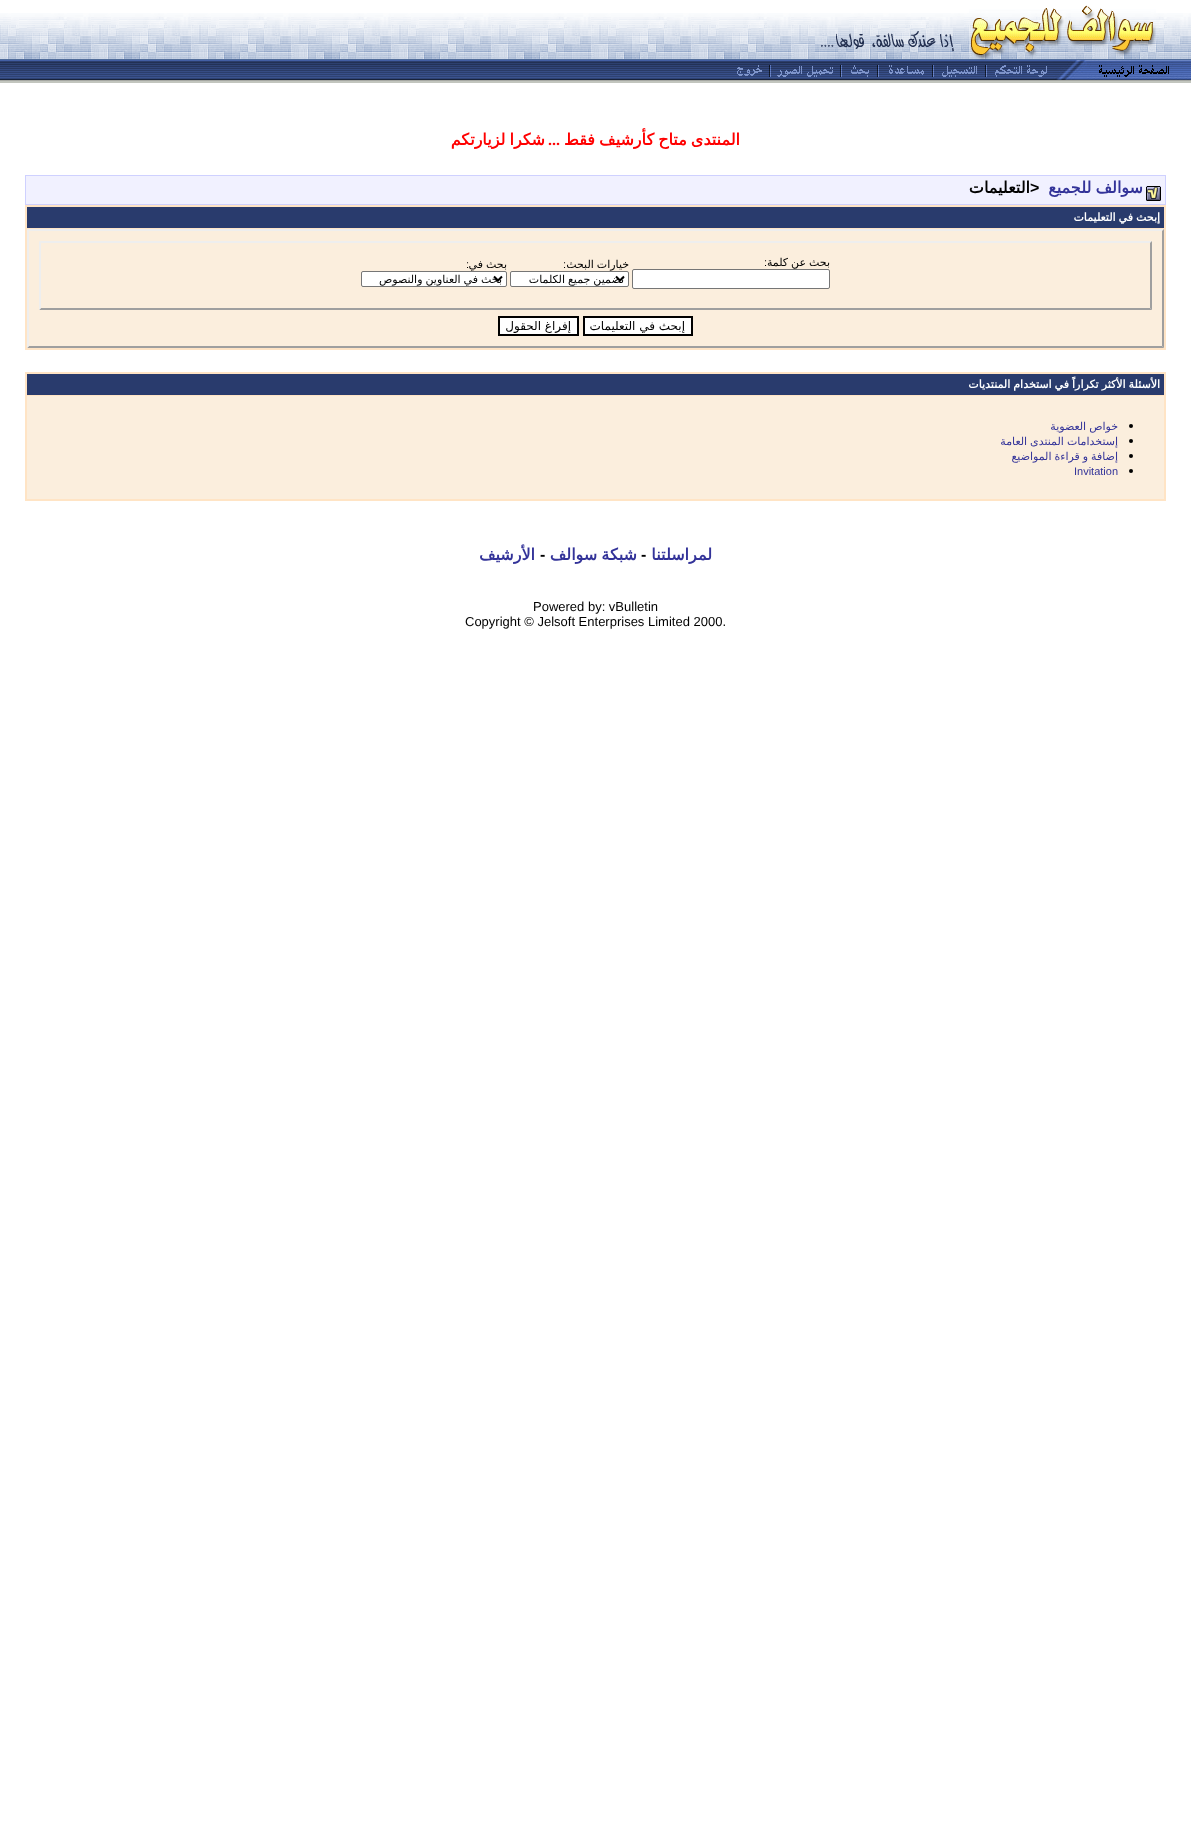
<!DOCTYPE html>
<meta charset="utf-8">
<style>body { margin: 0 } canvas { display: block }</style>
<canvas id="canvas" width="1191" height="1842"></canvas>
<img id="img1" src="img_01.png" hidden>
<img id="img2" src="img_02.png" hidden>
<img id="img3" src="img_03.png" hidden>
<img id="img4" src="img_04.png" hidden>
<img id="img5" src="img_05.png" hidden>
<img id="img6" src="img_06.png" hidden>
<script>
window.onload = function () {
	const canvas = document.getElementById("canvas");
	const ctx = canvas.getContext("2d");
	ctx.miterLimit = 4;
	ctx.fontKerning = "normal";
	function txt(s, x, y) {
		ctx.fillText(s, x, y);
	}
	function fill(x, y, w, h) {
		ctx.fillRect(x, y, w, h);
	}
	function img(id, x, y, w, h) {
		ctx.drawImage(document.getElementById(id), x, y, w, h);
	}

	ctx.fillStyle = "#FFFFFF";
	fill(0, 0, 1191, 1842);
	img("img1", 0, 13, 1191, 46);
	img("img2", 969, 5, 187, 54);
	img("img3", 815, 17, 154, 42);
	img("img4", 0, 59, 1191, 24);
	img("img5", 737, 59, 454, 21);
	ctx.fillStyle = "#F1F1FF";
	fill(26, 176, 1139, 28);
	ctx.fillStyle = "#CFD1FF";
	fill(25, 175, 1141, 1);
	fill(1165, 175, 1, 30);
	fill(25, 204, 1141, 1);
	fill(25, 175, 1, 30);
	img("img6", 1146, 186, 15, 15);
	ctx.fillStyle = "#FFE4C5";
	fill(25, 205, 1141, 145);
	ctx.fillStyle = "#293B6D";
	fill(27, 207, 1137, 21);
	ctx.fillStyle = "#FBEEDD";
	fill(27, 229, 1137, 119);
	ctx.fillStyle = "#EEEEEE";
	ctx.beginPath();
	ctx.moveTo(27, 229);
	ctx.lineTo(1164, 229);
	ctx.lineTo(1162, 231);
	ctx.lineTo(29, 231);
	ctx.closePath();
	ctx.fill();
	ctx.fillStyle = "#9F9F9F";
	ctx.beginPath();
	ctx.moveTo(1164, 229);
	ctx.lineTo(1164, 348);
	ctx.lineTo(1162, 346);
	ctx.lineTo(1162, 231);
	ctx.closePath();
	ctx.fill();
	ctx.beginPath();
	ctx.moveTo(1164, 348);
	ctx.lineTo(27, 348);
	ctx.lineTo(29, 346);
	ctx.lineTo(1162, 346);
	ctx.closePath();
	ctx.fill();
	ctx.fillStyle = "#EEEEEE";
	ctx.beginPath();
	ctx.moveTo(27, 348);
	ctx.lineTo(27, 229);
	ctx.lineTo(29, 231);
	ctx.lineTo(29, 346);
	ctx.closePath();
	ctx.fill();
	ctx.beginPath();
	ctx.moveTo(39, 241);
	ctx.lineTo(1152, 241);
	ctx.lineTo(1150, 243);
	ctx.lineTo(41, 243);
	ctx.closePath();
	ctx.fill();
	ctx.fillStyle = "#9F9F9F";
	ctx.beginPath();
	ctx.moveTo(1152, 241);
	ctx.lineTo(1152, 310);
	ctx.lineTo(1150, 308);
	ctx.lineTo(1150, 243);
	ctx.closePath();
	ctx.fill();
	ctx.beginPath();
	ctx.moveTo(1152, 310);
	ctx.lineTo(39, 310);
	ctx.lineTo(41, 308);
	ctx.lineTo(1150, 308);
	ctx.closePath();
	ctx.fill();
	ctx.fillStyle = "#EEEEEE";
	ctx.beginPath();
	ctx.moveTo(39, 310);
	ctx.lineTo(39, 241);
	ctx.lineTo(41, 243);
	ctx.lineTo(41, 308);
	ctx.closePath();
	ctx.fill();
	ctx.fillStyle = "#FFFFFF";
	ctx.beginPath();
	ctx.roundRect(632.5, 269.5, 197, 19, 1.5);
	ctx.fill();
	ctx.strokeStyle = "#767676";
	ctx.stroke();
	ctx.beginPath();
	ctx.roundRect(510.5, 271.5, 118, 15, 1.5);
	ctx.fill();
	ctx.stroke();
	ctx.beginPath();
	ctx.moveTo(616, 276.5);
	ctx.lineTo(620, 280.5);
	ctx.lineTo(624, 276.5);
	ctx.strokeStyle = "#000000";
	ctx.lineWidth = 2;
	ctx.stroke();
	ctx.beginPath();
	ctx.roundRect(361.5, 271.5, 145, 15, 1.5);
	ctx.fill();
	ctx.strokeStyle = "#767676";
	ctx.lineWidth = 1;
	ctx.stroke();
	ctx.beginPath();
	ctx.moveTo(494, 276.5);
	ctx.lineTo(498, 280.5);
	ctx.lineTo(502, 276.5);
	ctx.strokeStyle = "#000000";
	ctx.lineWidth = 2;
	ctx.stroke();
	ctx.beginPath();
	ctx.rect(584, 317, 108, 18);
	ctx.fill();
	ctx.stroke();
	ctx.beginPath();
	ctx.rect(499, 317, 79, 18);
	ctx.fill();
	ctx.stroke();
	ctx.fillStyle = "#FFE4C5";
	fill(25, 372, 1141, 129);
	ctx.fillStyle = "#293B6D";
	fill(27, 374, 1137, 21);
	ctx.fillStyle = "#FBEEDD";
	fill(27, 396, 1137, 103);
	ctx.fillStyle = "#000000";
	ctx.beginPath();
	ctx.arc(1131, 426, 2, 0, Math.PI * 2);
	ctx.fill();
	ctx.beginPath();
	ctx.arc(1131, 441, 2, 0, Math.PI * 2);
	ctx.fill();
	ctx.beginPath();
	ctx.arc(1131, 456, 2, 0, Math.PI * 2);
	ctx.fill();
	ctx.beginPath();
	ctx.arc(1131, 471, 2, 0, Math.PI * 2);
	ctx.fill();
	ctx.wordSpacing = "-1px";
	ctx.direction = "rtl";
	ctx.font = "bold 16px DejaVu Sans";
	ctx.fillStyle = "#FF0000";
	txt("المنتدى متاح كأرشيف فقط", 740, 145);
	ctx.wordSpacing = "0px";
	ctx.font = "bold 16px Liberation Serif";
	txt("...", 560, 145);
	ctx.wordSpacing = "-1px";
	ctx.font = "bold 16px DejaVu Sans";
	txt("شكرا لزيارتكم", 545, 145);
	ctx.fillStyle = "#333399";
	txt("سوالف للجميع", 1143, 193);
	ctx.wordSpacing = "0px";
	ctx.direction = "ltr";
	ctx.font = "bold 16px Liberation Sans";
	ctx.fillStyle = "#000000";
	txt(">", 1030, 193);
	ctx.direction = "rtl";
	ctx.font = "bold 16px DejaVu Sans";
	txt("التعليمات", 1030, 193);
	ctx.wordSpacing = "-0.5px";
	ctx.font = "bold 11px DejaVu Sans";
	ctx.fillStyle = "#FFFFFF";
	txt("إبحث في التعليمات", 1160, 221);
	ctx.font = "11px DejaVu Sans";
	ctx.fillStyle = "#000000";
	txt("بحث عن كلمة", 830, 266);
	ctx.wordSpacing = "0px";
	ctx.font = "11px Liberation Sans";
	txt(":", 767, 266);
	ctx.wordSpacing = "-0.5px";
	ctx.font = "11px DejaVu Sans";
	txt("خيارات البحث", 629, 268);
	ctx.wordSpacing = "0px";
	ctx.font = "11px Liberation Sans";
	txt(":", 566, 268);
	ctx.wordSpacing = "-0.5px";
	ctx.font = "11px DejaVu Sans";
	txt("تضمين جميع الكلمات", 624, 283);
	txt("بحث في", 507, 268);
	ctx.wordSpacing = "0px";
	ctx.font = "11px Liberation Sans";
	txt(":", 469, 268);
	ctx.wordSpacing = "-0.5px";
	ctx.font = "11px DejaVu Sans";
	txt("بحث في العناوين والنصوص", 502, 283);
	ctx.wordSpacing = "0px";
	ctx.font = "12px DejaVu Sans";
	txt("إبحث في التعليمات", 685, 330);
	txt("إفراغ الحقول", 571, 330);
	ctx.wordSpacing = "-0.5px";
	ctx.font = "bold 11px DejaVu Sans";
	ctx.fillStyle = "#FFFFFF";
	txt("الأسئلة الأكثر تكراراً في استخدام المنتديات", 1160, 388);
	ctx.font = "11px DejaVu Sans";
	ctx.fillStyle = "#333399";
	txt("خواص العضوية", 1118, 430);
	txt("إستخدامات المنتدى العامة", 1118, 445);
	txt("إضافة و قراءة المواضيع", 1118, 460);
	ctx.wordSpacing = "0px";
	ctx.direction = "ltr";
	ctx.font = "11px Liberation Sans";
	txt("Invitation", 1074, 475);
	ctx.direction = "rtl";
	ctx.font = "bold 16px DejaVu Sans";
	txt("لمراسلتنا", 712, 560);
	ctx.direction = "ltr";
	ctx.font = "bold 16px Liberation Sans";
	ctx.fillStyle = "#000000";
	txt("-", 641, 560);
	ctx.wordSpacing = "-1px";
	ctx.direction = "rtl";
	ctx.font = "bold 16px DejaVu Sans";
	ctx.fillStyle = "#333399";
	txt("شبكة سوالف", 637, 560);
	ctx.wordSpacing = "0px";
	ctx.direction = "ltr";
	ctx.font = "bold 16px Liberation Sans";
	ctx.fillStyle = "#000000";
	txt("-", 540, 560);
	ctx.direction = "rtl";
	ctx.font = "bold 16px DejaVu Sans";
	ctx.fillStyle = "#333399";
	txt("الأرشيف", 535, 560);
	ctx.direction = "ltr";
	ctx.font = "13px Liberation Sans";
	ctx.fillStyle = "#000000";
	txt("Powered by: vBulletin", 533, 611);
	txt("Copyright © Jelsoft Enterprises Limited 2000.", 465, 626);
};
</script>
